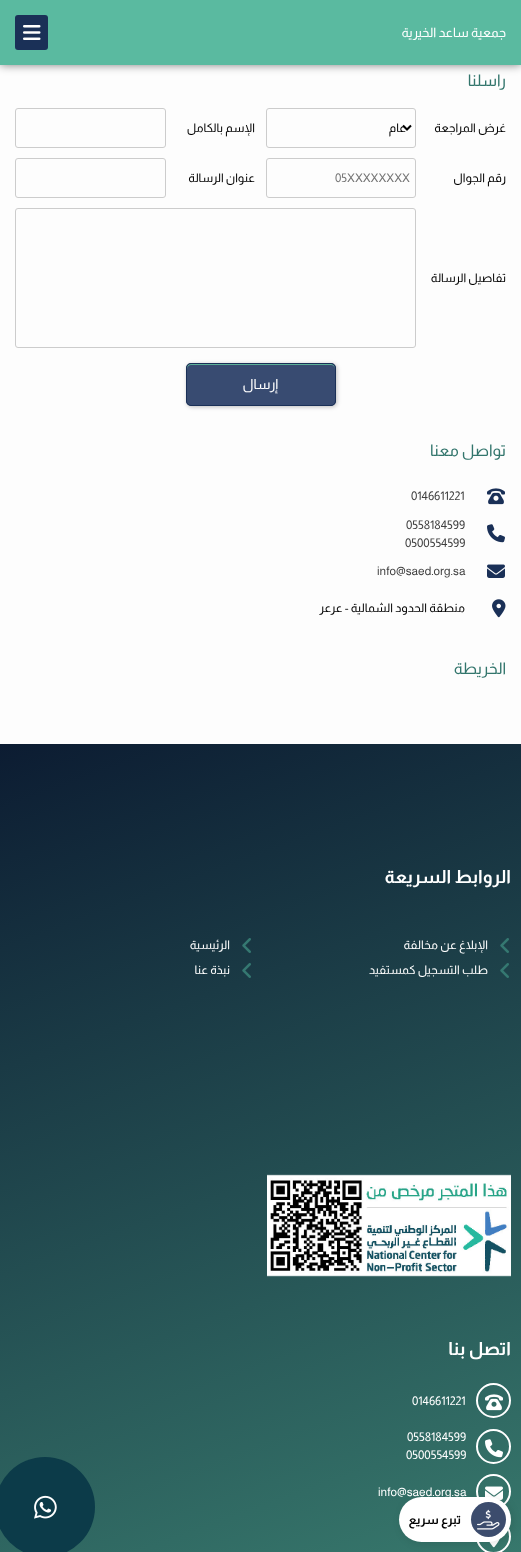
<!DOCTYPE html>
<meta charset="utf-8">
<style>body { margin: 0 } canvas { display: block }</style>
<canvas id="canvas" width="521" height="1552"></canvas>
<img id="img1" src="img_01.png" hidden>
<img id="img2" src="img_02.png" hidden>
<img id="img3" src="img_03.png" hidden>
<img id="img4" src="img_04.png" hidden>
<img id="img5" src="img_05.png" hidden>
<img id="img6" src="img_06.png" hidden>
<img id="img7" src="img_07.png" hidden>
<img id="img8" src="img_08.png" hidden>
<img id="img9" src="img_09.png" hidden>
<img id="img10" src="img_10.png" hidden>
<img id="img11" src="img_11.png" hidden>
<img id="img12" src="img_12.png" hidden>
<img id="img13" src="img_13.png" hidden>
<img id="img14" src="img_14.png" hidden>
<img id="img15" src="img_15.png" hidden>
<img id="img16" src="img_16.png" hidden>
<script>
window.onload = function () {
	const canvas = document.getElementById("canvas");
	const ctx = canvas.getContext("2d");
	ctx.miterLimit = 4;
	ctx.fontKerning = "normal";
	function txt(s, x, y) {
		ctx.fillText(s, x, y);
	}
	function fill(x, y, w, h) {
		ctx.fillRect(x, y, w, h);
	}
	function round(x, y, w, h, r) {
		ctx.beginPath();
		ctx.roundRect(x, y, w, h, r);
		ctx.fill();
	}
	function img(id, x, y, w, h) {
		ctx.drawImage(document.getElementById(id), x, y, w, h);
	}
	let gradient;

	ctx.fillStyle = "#FDFDFD";
	fill(0, 0, 521, 1552);
	ctx.fillStyle = "rgba(0, 0, 0, 0.5)";
	ctx.filter = "blur(5px)";
	ctx.beginPath();
	ctx.rect(0, 0, 521, 65);
	ctx.fill();
	ctx.filter = "none";
	ctx.fillStyle = "#5ABAA0";
	fill(0, 0, 521, 65);
	ctx.fillStyle = "#1A3057";
	round(15, 15, 33, 35, 3);
	img("img1", 23, 25, 18, 15);
	ctx.beginPath();
	ctx.roundRect(266.5, 108.5, 149, 39, 2.5);
	ctx.strokeStyle = "#CCCCCC";
	ctx.stroke();
	ctx.beginPath();
	ctx.moveTo(403, 125.5);
	ctx.lineTo(407, 129.5);
	ctx.lineTo(411, 125.5);
	ctx.strokeStyle = "#000000";
	ctx.lineWidth = 2;
	ctx.stroke();
	ctx.beginPath();
	ctx.roundRect(15.5, 108.5, 150, 39, 2.5);
	ctx.strokeStyle = "#CCCCCC";
	ctx.lineWidth = 1;
	ctx.stroke();
	ctx.beginPath();
	ctx.roundRect(266.5, 158.5, 149, 39, 2.5);
	ctx.stroke();
	ctx.beginPath();
	ctx.roundRect(15.5, 158.5, 150, 39, 2.5);
	ctx.stroke();
	ctx.beginPath();
	ctx.roundRect(15.5, 208.5, 400, 139, 2.5);
	ctx.stroke();
	ctx.fillStyle = "rgba(0, 0, 0, 0.25)";
	ctx.filter = "blur(2px)";
	ctx.beginPath();
	ctx.roundRect(187, 364, 150, 43, 5);
	ctx.fill();
	ctx.filter = "none";
	ctx.fillStyle = "#384B71";
	round(186, 363, 150, 43, 5);
	ctx.fillStyle = "#5CB098";
	ctx.beginPath();
	ctx.moveTo(191, 365);
	ctx.lineTo(331, 365);
	ctx.bezierCurveTo(333, 365, 335, 367, 335, 369);
	ctx.bezierCurveTo(335, 367, 334, 365, 332, 364);
	ctx.lineTo(191, 364);
	ctx.bezierCurveTo(188, 364, 187, 366, 187, 369);
	ctx.bezierCurveTo(187, 367, 189, 365, 191, 365);
	ctx.closePath();
	ctx.fill();
	ctx.beginPath();
	ctx.roundRect(186.5, 363.5, 149, 42, 4.5);
	ctx.strokeStyle = "#1A3057";
	ctx.stroke();
	img("img2", 487, 488, 18, 17);
	img("img3", 487, 524, 18, 19);
	img("img4", 487, 564, 18, 14);
	img("img5", 492, 599, 14, 19);
	gradient = ctx.createLinearGradient(70, 718, 451, 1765);
	gradient.addColorStop(0, "#0C1C32");
	gradient.addColorStop(1, "#3F8977");
	ctx.fillStyle = gradient;
	fill(0, 744, 521, 808);
	img("img6", 500, 938, 9, 15);
	img("img7", 242, 938, 9, 15);
	img("img8", 500, 963, 9, 15);
	img("img9", 242, 963, 9, 15);
	img("img10", 267, 1174, 244, 103);
	ctx.beginPath();
	ctx.arc(493.5, 1400.5, 16.5, 0, Math.PI * 2);
	ctx.strokeStyle = "#FFFFFF";
	ctx.lineWidth = 2;
	ctx.stroke();
	img("img11", 485, 1394, 18, 17);
	ctx.beginPath();
	ctx.arc(493.5, 1446.5, 16.5, 0, Math.PI * 2);
	ctx.stroke();
	img("img12", 485, 1439, 18, 19);
	ctx.beginPath();
	ctx.arc(493.5, 1491.5, 16.5, 0, Math.PI * 2);
	ctx.stroke();
	img("img13", 485, 1486, 18, 14);
	ctx.beginPath();
	ctx.arc(493.5, 1536.5, 16.5, 0, Math.PI * 2);
	ctx.stroke();
	img("img14", 489, 1538, 11, 10);
	ctx.fillStyle = "#0C3B49";
	ctx.beginPath();
	ctx.arc(45, 1507, 50, 0, Math.PI * 2);
	ctx.fill();
	img("img15", 34, 1495, 23, 24);
	ctx.fillStyle = "rgba(0, 0, 0, 0.1)";
	ctx.filter = "blur(4px)";
	ctx.beginPath();
	ctx.roundRect(401, 1499, 112, 45, 22.5);
	ctx.fill();
	ctx.filter = "none";
	ctx.fillStyle = "#FFFFFF";
	round(399, 1497, 112, 45, 22.5);
	ctx.fillStyle = "#3C4C6D";
	ctx.beginPath();
	ctx.arc(488.5, 1519.5, 17.5, 0, Math.PI * 2);
	ctx.fill();
	img("img16", 477, 1509, 23, 21);
	ctx.direction = "rtl";
	ctx.font = "13px Almarai";
	ctx.fillStyle = "#FFFFFF";
	txt("جمعية ساعد الخيرية", 506, 37);
	ctx.font = "16px Almarai";
	ctx.fillStyle = "#32756C";
	txt("راسلنا", 506, 86);
	ctx.font = "12px Almarai";
	ctx.fillStyle = "#000000";
	txt("غرض المراجعة", 506, 132);
	txt("عام", 406, 132);
	txt("الإسم بالكامل", 255, 132);
	txt("رقم الجوال", 506, 182);
	ctx.direction = "ltr";
	ctx.fillStyle = "#757575";
	txt("05XXXXXXXX", 335, 182);
	ctx.direction = "rtl";
	ctx.fillStyle = "#000000";
	txt("عنوان الرسالة", 255, 182);
	txt("تفاصيل الرسالة", 506, 282);
	ctx.font = "14px Almarai";
	ctx.fillStyle = "#FFFFFF";
	txt("إرسال", 278, 389);
	ctx.font = "16px Almarai";
	ctx.fillStyle = "#32756C";
	txt("تواصل معنا", 506, 456);
	ctx.direction = "ltr";
	ctx.font = "12px Almarai";
	ctx.fillStyle = "#404040";
	txt("0146611221", 411, 500);
	txt("0558184599", 406, 529);
	txt("0500554599", 405, 547);
	txt("info@saed.org.sa", 377, 575);
	ctx.direction = "rtl";
	ctx.fillStyle = "#000000";
	txt("منطقة الحدود الشمالية - عرعر", 465, 612);
	ctx.font = "16px Almarai";
	ctx.fillStyle = "#32756C";
	txt("الخريطة", 506, 674);
	ctx.font = "bold 18px Almarai";
	ctx.fillStyle = "#FFFFFF";
	txt("الروابط السريعة", 511, 883);
	ctx.font = "12px Almarai";
	txt("الإبلاغ عن مخالفة", 488, 949);
	txt("الرئيسية", 230, 949);
	txt("طلب التسجيل كمستفيد", 488, 974);
	txt("نبذة عنا", 230, 974);
	ctx.font = "bold 18px Almarai";
	txt("اتصل بنا", 511, 1355);
	ctx.direction = "ltr";
	ctx.font = "12px Almarai";
	txt("0146611221", 412, 1405);
	txt("0558184599", 407, 1441);
	txt("0500554599", 406, 1459);
	txt("info@saed.org.sa", 378, 1496);
	ctx.direction = "rtl";
	ctx.font = "bold 12px Almarai";
	ctx.fillStyle = "#000000";
	txt("تبرع سريع", 461, 1524);
};
</script>
